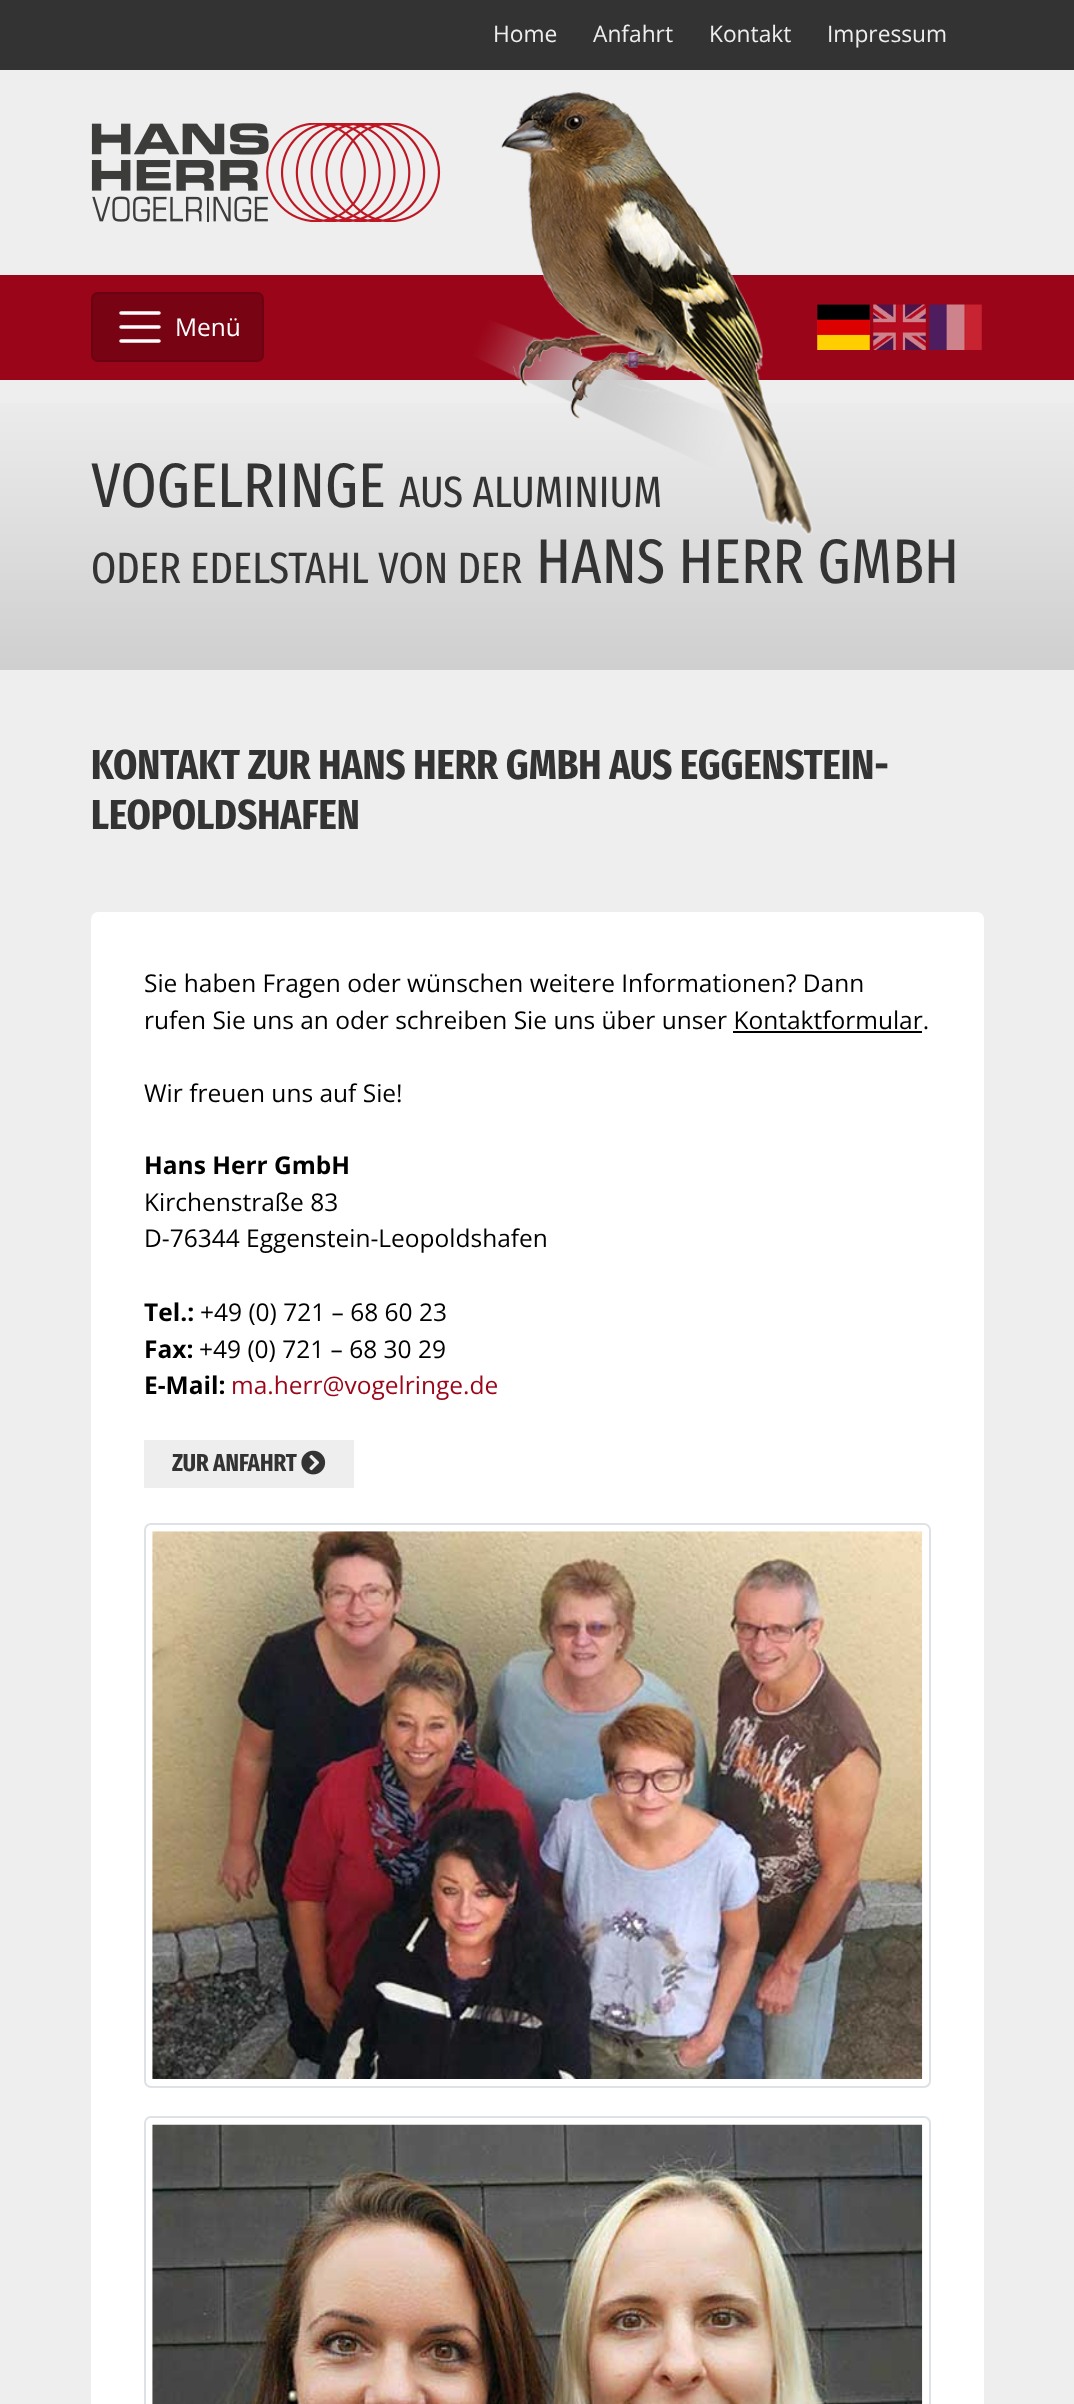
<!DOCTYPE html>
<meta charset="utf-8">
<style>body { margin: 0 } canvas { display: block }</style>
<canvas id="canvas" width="1074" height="2404"></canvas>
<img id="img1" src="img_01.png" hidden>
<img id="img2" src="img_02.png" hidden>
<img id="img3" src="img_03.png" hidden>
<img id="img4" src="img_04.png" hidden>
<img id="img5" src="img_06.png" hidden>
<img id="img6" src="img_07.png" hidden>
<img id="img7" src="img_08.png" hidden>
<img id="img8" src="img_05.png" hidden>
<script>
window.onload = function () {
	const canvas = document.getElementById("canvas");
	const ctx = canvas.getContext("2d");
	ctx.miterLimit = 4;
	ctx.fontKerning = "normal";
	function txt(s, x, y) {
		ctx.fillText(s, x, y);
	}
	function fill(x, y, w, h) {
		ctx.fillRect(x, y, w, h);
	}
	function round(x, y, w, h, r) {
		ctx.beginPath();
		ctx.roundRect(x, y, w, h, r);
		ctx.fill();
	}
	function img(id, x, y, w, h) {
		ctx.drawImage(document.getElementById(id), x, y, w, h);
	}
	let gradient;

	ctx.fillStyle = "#EEEEEE";
	fill(0, 0, 1074, 2404);
	ctx.fillStyle = "#333334";
	fill(0, 0, 1074, 70);
	img("img1", 91, 123, 350, 99);
	ctx.fillStyle = "#9B0519";
	fill(0, 275, 1074, 105);
	ctx.fillStyle = "#780313";
	round(91, 292, 173, 70, 7);
	ctx.beginPath();
	ctx.roundRect(92, 293, 171, 68, 6);
	ctx.strokeStyle = "rgba(0, 0, 0, 0.1)";
	ctx.lineWidth = 2;
	ctx.stroke();
	ctx.beginPath();
	ctx.moveTo(121, 313);
	ctx.lineTo(159, 313);
	ctx.moveTo(121, 327);
	ctx.lineTo(159, 327);
	ctx.moveTo(121, 341);
	ctx.lineTo(159, 341);
	ctx.strokeStyle = "#FFFFFF";
	ctx.lineWidth = 3.5;
	ctx.lineCap = "round";
	ctx.stroke();
	img("img2", 817, 304, 53, 46);
	img("img3", 873, 304, 53, 46);
	img("img4", 929, 304, 53, 46);
	gradient = ctx.createLinearGradient(537, 380, 537, 670);
	gradient.addColorStop(0, "#EEEEEE");
	gradient.addColorStop(1, "#CFCFCF");
	ctx.fillStyle = gradient;
	fill(0, 403, 1074, 267);
	ctx.fillStyle = "#FFFFFF";
	round(91, 912, 893, 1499, 7);
	ctx.fillStyle = "#000000";
	fill(733, 1031, 189, 2);
	ctx.fillStyle = "#EEEEEE";
	fill(144, 1440, 210, 48);
	img("img5", 301, 1450, 25, 25);
	ctx.beginPath();
	ctx.roundRect(145, 1524, 785, 563, 6);
	ctx.strokeStyle = "#DEE2E6";
	ctx.lineWidth = 2;
	ctx.stroke();
	img("img6", 152, 1531, 771, 548);
	ctx.beginPath();
	ctx.roundRect(145, 2117, 785, 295, 6);
	ctx.stroke();
	img("img7", 152, 2124, 771, 280);
	ctx.font = "22.75px Open Sans";
	txt("Home", 493, 42);
	txt("Anfahrt", 593, 42);
	txt("Kontakt", 709, 42);
	txt("Impressum", 827, 42);
	ctx.font = "24.5px Open Sans";
	ctx.fillStyle = "#FFFFFF";
	txt("Menü", 175, 336);
	ctx.font = "63px Fira Sans Extra Condensed";
	ctx.fillStyle = "#333334";
	txt("VOGELRINGE", 91, 507);
	ctx.font = "44px Fira Sans Extra Condensed";
	txt("AUS ALUMINIUM", 399, 507);
	img("img8", 474, 91, 339, 444);
	txt("ODER EDELSTAHL VON DER", 91, 583);
	ctx.font = "63px Fira Sans Extra Condensed";
	txt("HANS HERR GMBH", 536, 583);
	ctx.font = "bold 42px Fira Sans Extra Condensed";
	txt("KONTAKT ZUR HANS HERR GMBH AUS EGGENSTEIN-", 91, 779);
	txt("LEOPOLDSHAFEN", 91, 829);
	ctx.font = "24.5px Open Sans";
	ctx.fillStyle = "#000000";
	txt("Sie haben Fragen oder wünschen weitere Informationen? Dann", 144, 992);
	txt("rufen Sie uns an oder schreiben Sie uns über unser Kontaktformular.", 144, 1029);
	txt("Wir freuen uns auf Sie!", 144, 1102);
	ctx.font = "bold 24.5px Open Sans";
	txt("Hans Herr GmbH", 144, 1174);
	ctx.font = "24.5px Open Sans";
	txt("Kirchenstraße 83", 144, 1211);
	txt("D-76344 Eggenstein-Leopoldshafen", 144, 1247);
	ctx.font = "bold 24.5px Open Sans";
	txt("Tel.:", 144, 1321);
	ctx.font = "24.5px Open Sans";
	txt("+49 (0) 721 – 68 60 23", 200, 1321);
	ctx.font = "bold 24.5px Open Sans";
	txt("Fax:", 144, 1358);
	ctx.font = "24.5px Open Sans";
	txt("+49 (0) 721 – 68 30 29", 199, 1358);
	ctx.font = "bold 24.5px Open Sans";
	txt("E-Mail:", 144, 1394);
	ctx.font = "24.5px Open Sans";
	ctx.fillStyle = "#9B0519";
	txt("ma.herr@vogelringe.de", 231, 1394);
	ctx.font = "bold 24.5px Fira Sans Extra Condensed";
	ctx.fillStyle = "#333334";
	txt("ZUR ANFAHRT", 172, 1471);
};
</script>
